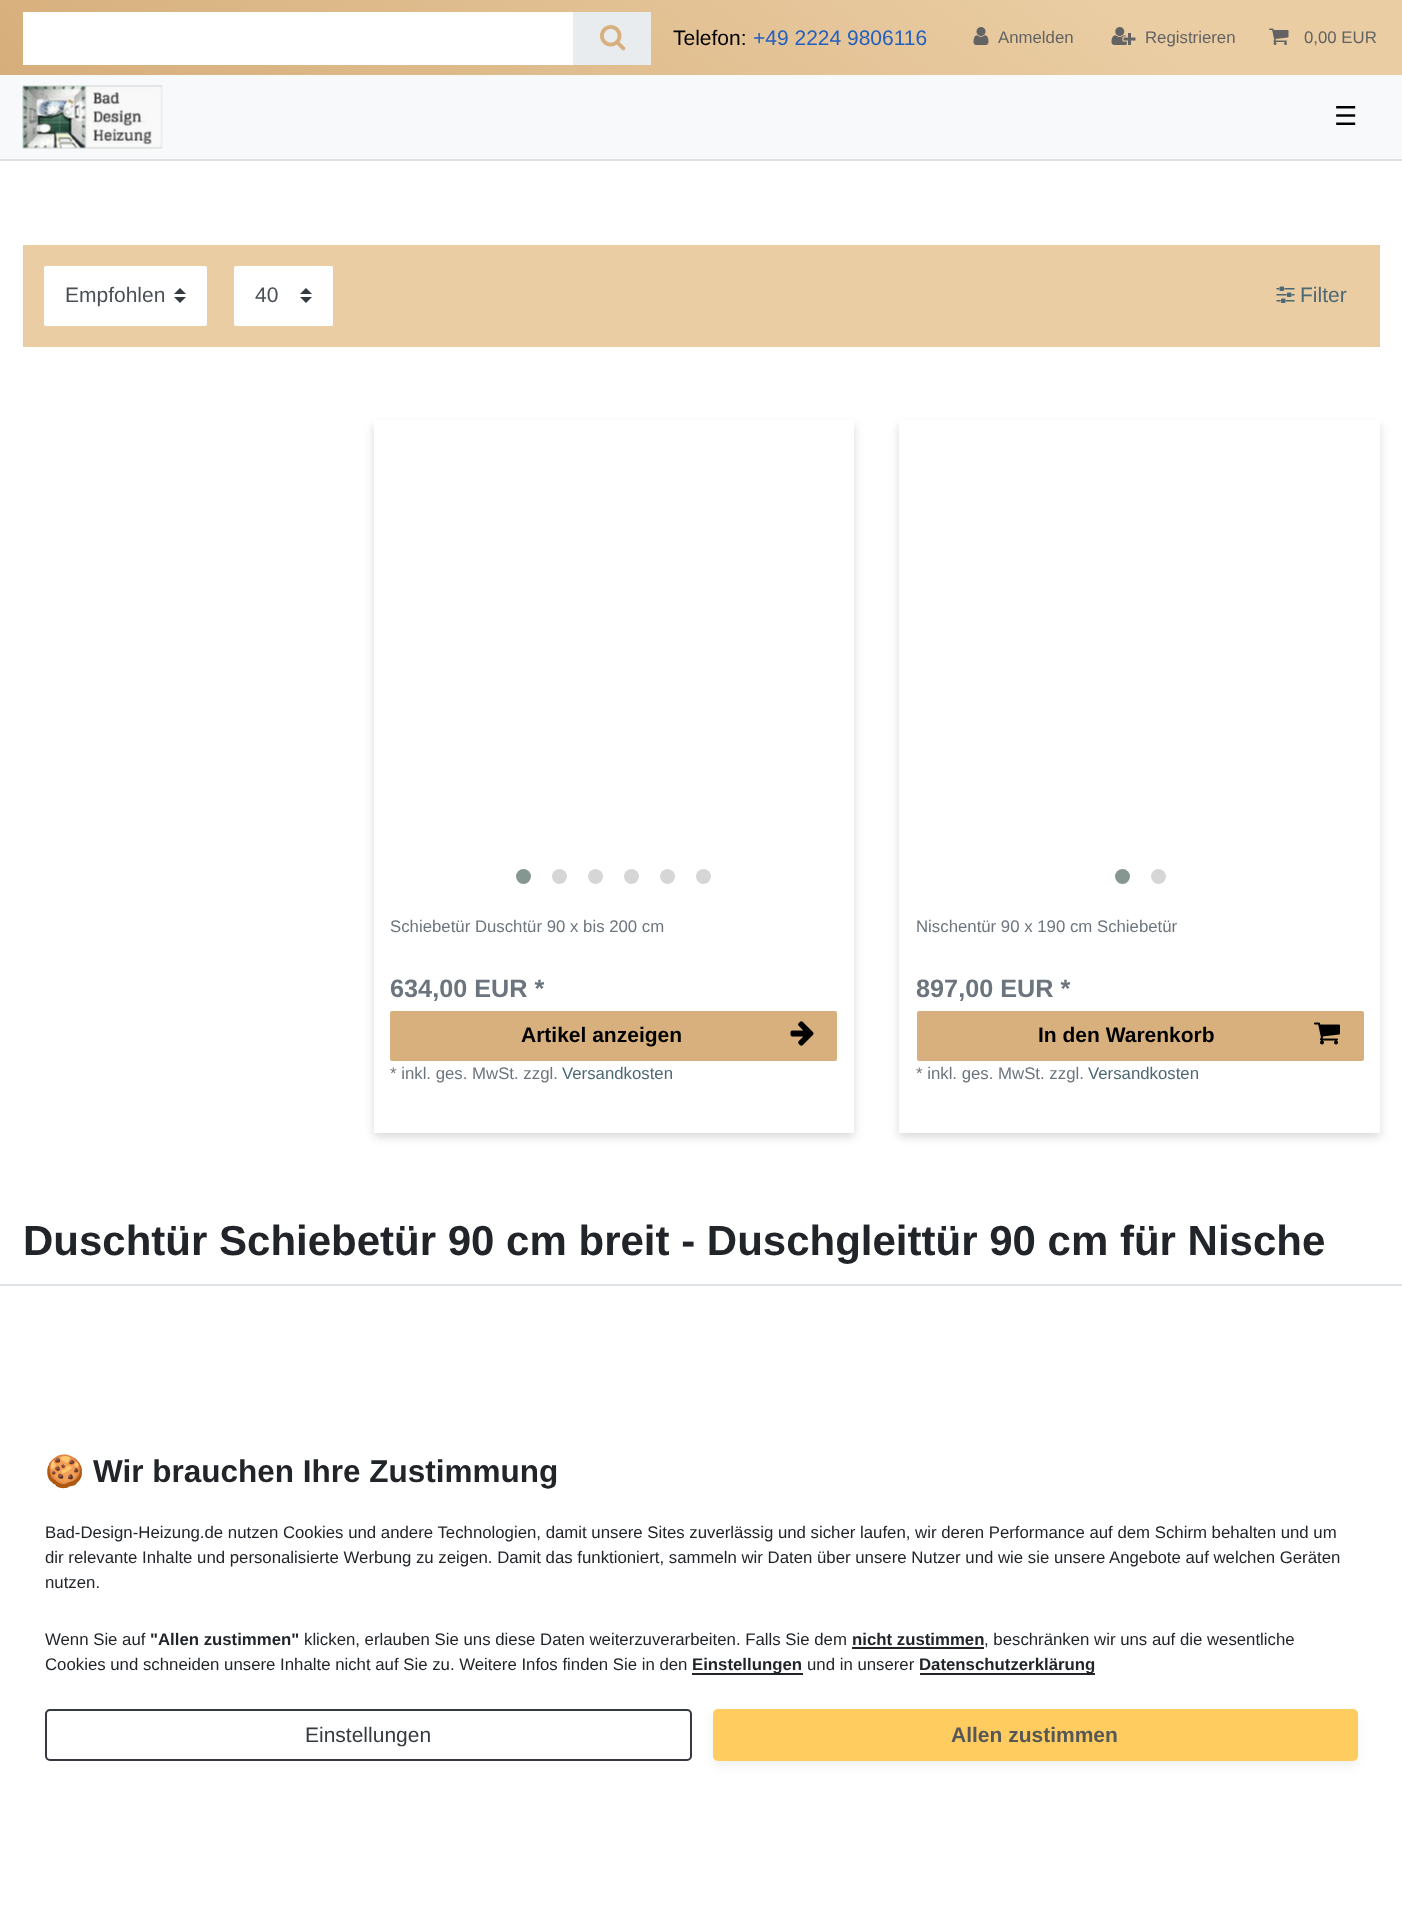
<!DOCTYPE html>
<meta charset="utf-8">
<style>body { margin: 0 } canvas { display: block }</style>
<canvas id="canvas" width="1402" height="1929"></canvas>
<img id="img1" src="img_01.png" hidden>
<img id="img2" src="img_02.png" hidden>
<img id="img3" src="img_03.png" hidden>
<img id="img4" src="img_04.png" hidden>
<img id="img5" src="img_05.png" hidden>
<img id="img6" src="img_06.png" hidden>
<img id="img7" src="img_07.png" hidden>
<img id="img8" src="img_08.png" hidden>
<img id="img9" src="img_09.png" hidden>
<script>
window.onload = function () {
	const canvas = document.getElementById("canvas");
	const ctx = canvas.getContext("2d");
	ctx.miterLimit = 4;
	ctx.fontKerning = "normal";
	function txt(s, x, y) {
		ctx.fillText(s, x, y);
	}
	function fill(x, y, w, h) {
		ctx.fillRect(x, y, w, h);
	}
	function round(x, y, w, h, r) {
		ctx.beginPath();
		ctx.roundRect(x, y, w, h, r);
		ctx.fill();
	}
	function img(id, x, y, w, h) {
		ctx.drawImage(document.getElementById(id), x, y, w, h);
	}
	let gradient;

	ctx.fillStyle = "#F8F9FA";
	fill(0, 0, 1402, 1929);
	gradient = ctx.createLinearGradient(950, -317, 453, 392);
	gradient.addColorStop(0.2, "#EACDA3");
	gradient.addColorStop(1, "#D6AE7B");
	ctx.fillStyle = gradient;
	fill(0, 0, 1402, 75);
	ctx.fillStyle = "#FFFFFF";
	fill(23, 12, 550, 53);
	ctx.fillStyle = "#E9ECEF";
	fill(573, 12, 78, 53);
	img("img1", 600, 25, 26, 26);
	img("img2", 973, 27, 16, 18);
	img("img3", 1111, 27, 25, 18);
	img("img4", 1269, 28, 20, 17);
	ctx.fillStyle = "#DEE2E6";
	fill(0, 159, 1402, 2);
	img("img5", 22, 85, 141, 64);
	ctx.fillStyle = "#FFFFFF";
	fill(0, 161, 1402, 1123);
	ctx.fillStyle = "#EACDA3";
	fill(23, 245, 1357, 102);
	ctx.fillStyle = "#FFFFFF";
	round(44, 266, 163, 60, 2);
	img("img6", 174, 288, 12, 15);
	round(234, 266, 99, 60, 2);
	img("img6", 300, 288, 12, 15);
	img("img7", 1276, 286, 19, 17);
	ctx.fillStyle = "rgba(0, 0, 0, 0.15)";
	ctx.filter = "blur(5px)";
	ctx.beginPath();
	ctx.rect(374, 425, 480, 712);
	ctx.fill();
	ctx.filter = "none";
	ctx.fillStyle = "#FFFFFF";
	fill(374, 420, 480, 713);
	ctx.fillStyle = "#869791";
	ctx.beginPath();
	ctx.arc(523.5, 876.5, 7.5, 0, Math.PI * 2);
	ctx.fill();
	ctx.fillStyle = "#D6D6D6";
	ctx.beginPath();
	ctx.arc(559.5, 876.5, 7.5, 0, Math.PI * 2);
	ctx.fill();
	ctx.beginPath();
	ctx.arc(595.5, 876.5, 7.5, 0, Math.PI * 2);
	ctx.fill();
	ctx.beginPath();
	ctx.arc(631.5, 876.5, 7.5, 0, Math.PI * 2);
	ctx.fill();
	ctx.beginPath();
	ctx.arc(667.5, 876.5, 7.5, 0, Math.PI * 2);
	ctx.fill();
	ctx.beginPath();
	ctx.arc(703.5, 876.5, 7.5, 0, Math.PI * 2);
	ctx.fill();
	ctx.fillStyle = "#D7B07D";
	ctx.beginPath();
	ctx.roundRect(391, 1012, 445, 48, 1);
	ctx.fill();
	ctx.strokeStyle = "#D7B07D";
	ctx.lineWidth = 2;
	ctx.stroke();
	img("img8", 790, 1021, 24, 25);
	ctx.fillStyle = "rgba(0, 0, 0, 0.15)";
	ctx.filter = "blur(5px)";
	ctx.beginPath();
	ctx.rect(899, 425, 481, 712);
	ctx.fill();
	ctx.filter = "none";
	ctx.fillStyle = "#FFFFFF";
	fill(899, 420, 481, 713);
	ctx.fillStyle = "#869791";
	ctx.beginPath();
	ctx.arc(1122.5, 876.5, 7.5, 0, Math.PI * 2);
	ctx.fill();
	ctx.fillStyle = "#D6D6D6";
	ctx.beginPath();
	ctx.arc(1158.5, 876.5, 7.5, 0, Math.PI * 2);
	ctx.fill();
	ctx.fillStyle = "#D7B07D";
	ctx.beginPath();
	ctx.roundRect(918, 1012, 445, 48, 1);
	ctx.fill();
	ctx.stroke();
	img("img9", 1314, 1022, 26, 23);
	ctx.fillStyle = "#FFFFFF";
	fill(0, 1286, 1402, 643);
	ctx.fillStyle = "#DEE2E6";
	fill(0, 1284, 1402, 2);
	ctx.fillStyle = "#212529";
	fill(852, 1647, 132, 2);
	fill(692, 1673, 111, 2);
	fill(920, 1673, 175, 2);
	ctx.beginPath();
	ctx.roundRect(46, 1710, 645, 50, 4);
	ctx.strokeStyle = "#343A40";
	ctx.stroke();
	ctx.fillStyle = "rgba(0, 0, 0, 0.06)";
	ctx.filter = "blur(5px)";
	ctx.beginPath();
	ctx.roundRect(713, 1713, 645, 53, 5);
	ctx.fill();
	ctx.filter = "none";
	ctx.fillStyle = "#FFCC5F";
	ctx.beginPath();
	ctx.roundRect(714, 1710, 643, 50, 4);
	ctx.fill();
	ctx.strokeStyle = "#FFCC5F";
	ctx.stroke();
	ctx.font = "21px Liberation Sans";
	ctx.fillStyle = "#000000";
	txt("Telefon:", 673, 45);
	ctx.fillStyle = "#2360BF";
	txt("+49 2224 9806116", 753, 45);
	ctx.font = "16.8px Liberation Sans";
	ctx.fillStyle = "#636363";
	txt("Anmelden", 998, 43);
	txt("Registrieren", 1145, 43);
	txt("0,00 EUR", 1304, 43);
	ctx.font = "26px DejaVu Sans";
	ctx.fillStyle = "#000000";
	txt("☰", 1334, 125);
	ctx.font = "21px Liberation Sans";
	ctx.fillStyle = "#495057";
	txt("Empfohlen", 65, 302);
	txt("40", 255, 302);
	ctx.fillStyle = "#4D6875";
	txt("Filter", 1300, 302);
	ctx.font = "16.8px Liberation Sans";
	ctx.fillStyle = "#6C757D";
	txt("Schiebetür Duschtür 90 x bis 200 cm", 390, 932);
	ctx.font = "bold 25.25px Liberation Sans";
	txt("634,00 EUR *", 390, 997);
	ctx.font = "bold 21px Liberation Sans";
	ctx.fillStyle = "#000000";
	txt("Artikel anzeigen", 521, 1042);
	ctx.font = "16.8px Liberation Sans";
	ctx.fillStyle = "#6C757D";
	txt("* inkl. ges. MwSt. zzgl.", 390, 1079);
	ctx.fillStyle = "#4D6875";
	txt("Versandkosten", 562, 1079);
	ctx.fillStyle = "#6C757D";
	txt("Nischentür 90 x 190 cm Schiebetür", 916, 932);
	ctx.font = "bold 25.25px Liberation Sans";
	txt("897,00 EUR *", 916, 997);
	ctx.font = "bold 21px Liberation Sans";
	ctx.fillStyle = "#000000";
	txt("In den Warenkorb", 1038, 1042);
	ctx.font = "16.8px Liberation Sans";
	ctx.fillStyle = "#6C757D";
	txt("* inkl. ges. MwSt. zzgl.", 916, 1079);
	ctx.fillStyle = "#4D6875";
	txt("Versandkosten", 1088, 1079);
	ctx.font = "bold 42px Liberation Sans";
	ctx.fillStyle = "#212529";
	txt("Duschtür Schiebetür 90 cm breit - Duschgleittür 90 cm für Nische", 23, 1255);
	ctx.font = "bold 31.5px Noto Color Emoji";
	txt("🍪", 45, 1482);
	ctx.font = "bold 31.5px Liberation Sans";
	txt("Wir brauchen Ihre Zustimmung", 93, 1482);
	ctx.font = "16.8px Liberation Sans";
	txt("Bad-Design-Heizung.de nutzen Cookies und andere Technologien, damit unsere Sites zuverlässig und sicher laufen, wir deren Performance auf dem Schirm behalten und um", 45, 1538);
	txt("dir relevante Inhalte und personalisierte Werbung zu zeigen. Damit das funktioniert, sammeln wir Daten über unsere Nutzer und wie sie unsere Angebote auf welchen Geräten", 45, 1563);
	txt("nutzen.", 45, 1588);
	txt("Wenn Sie auf", 45, 1645);
	ctx.font = "bold 16.8px Liberation Sans";
	txt("\"Allen zustimmen\"", 150, 1645);
	ctx.font = "16.8px Liberation Sans";
	txt("klicken, erlauben Sie uns diese Daten weiterzuverarbeiten. Falls Sie dem", 304, 1645);
	ctx.font = "bold 16.8px Liberation Sans";
	txt("nicht zustimmen", 852, 1645);
	ctx.font = "16.8px Liberation Sans";
	txt(", beschränken wir uns auf die wesentliche", 984, 1645);
	txt("Cookies und schneiden unsere Inhalte nicht auf Sie zu. Weitere Infos finden Sie in den", 45, 1670);
	ctx.font = "bold 16.8px Liberation Sans";
	txt("Einstellungen", 692, 1670);
	ctx.font = "16.8px Liberation Sans";
	txt("und in unserer", 807, 1670);
	ctx.font = "bold 16.8px Liberation Sans";
	txt("Datenschutzerklärung", 919, 1670);
	ctx.font = "21px Liberation Sans";
	ctx.fillStyle = "#343A40";
	txt("Einstellungen", 305, 1742);
	ctx.font = "bold 21px Liberation Sans";
	ctx.fillStyle = "#575757";
	txt("Allen zustimmen", 951, 1742);
};
</script>
